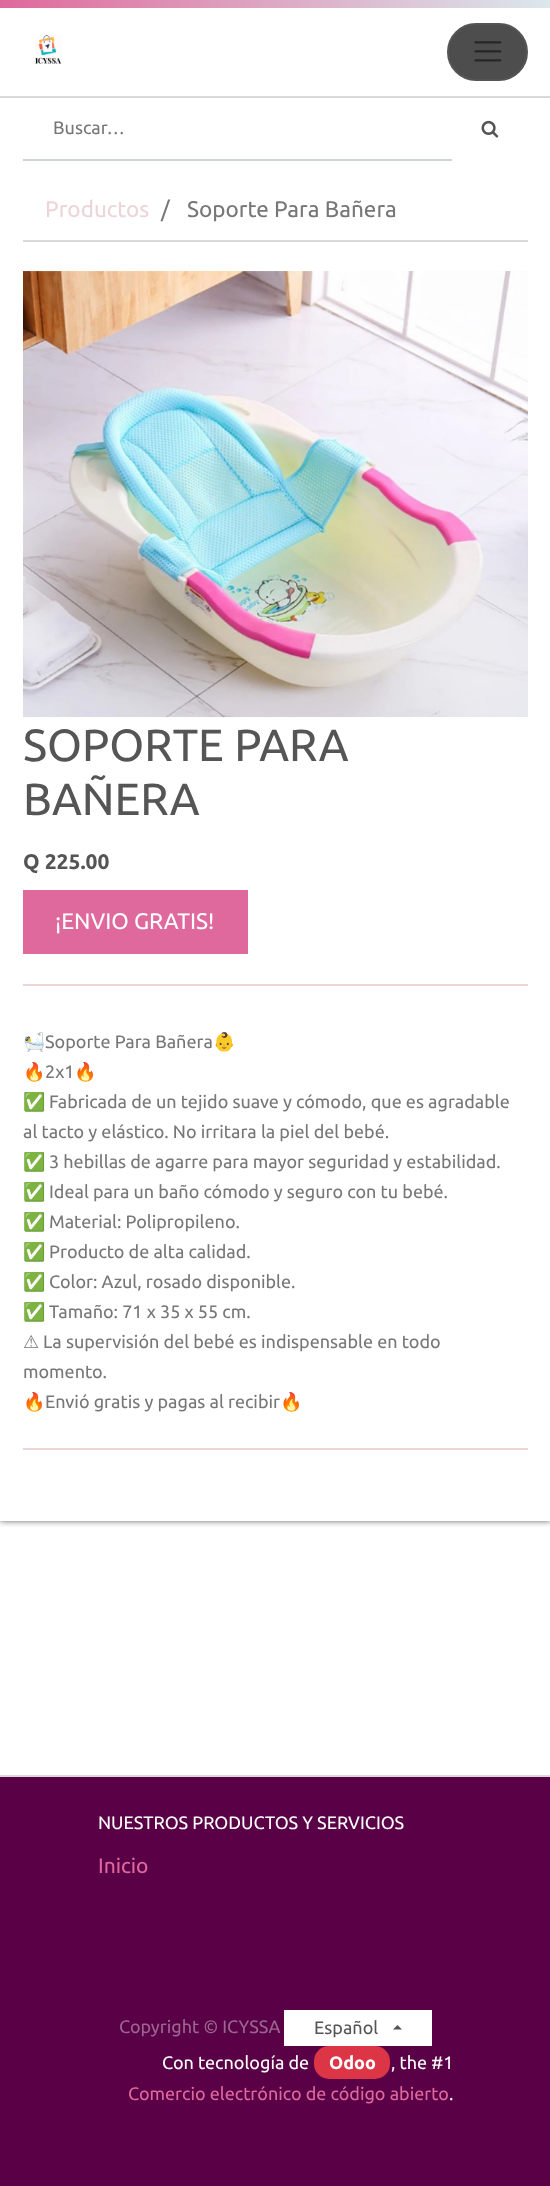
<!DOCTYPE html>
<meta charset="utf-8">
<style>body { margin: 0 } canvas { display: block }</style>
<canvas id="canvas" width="550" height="2186"></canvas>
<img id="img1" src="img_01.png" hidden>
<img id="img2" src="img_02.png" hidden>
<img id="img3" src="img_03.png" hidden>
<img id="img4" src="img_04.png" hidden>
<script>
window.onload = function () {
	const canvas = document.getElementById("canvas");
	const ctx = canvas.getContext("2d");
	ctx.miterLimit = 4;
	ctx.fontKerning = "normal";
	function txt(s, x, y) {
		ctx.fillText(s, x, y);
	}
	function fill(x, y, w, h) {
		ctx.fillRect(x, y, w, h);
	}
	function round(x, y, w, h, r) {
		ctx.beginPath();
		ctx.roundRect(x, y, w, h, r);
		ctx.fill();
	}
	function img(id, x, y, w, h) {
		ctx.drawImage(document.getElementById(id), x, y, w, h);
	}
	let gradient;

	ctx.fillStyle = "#FFFFFF";
	fill(0, 0, 550, 2186);
	ctx.save();
	ctx.beginPath();
	ctx.rect(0, 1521, 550, 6);
	ctx.clip();
	ctx.fillStyle = "rgba(50, 50, 50, 0.75)";
	ctx.filter = "blur(3px)";
	ctx.beginPath();
	ctx.rect(0, 98, 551, 1423);
	ctx.fill();
	ctx.filter = "none";
	ctx.restore();
	fill(0, 92, 550, 4);
	ctx.fillStyle = "#D9D9D9";
	fill(0, 96, 550, 2);
	gradient = ctx.createLinearGradient(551, 3.8, 0, 3.7);
	gradient.addColorStop(0, "#DBE8ED");
	gradient.addColorStop(1, "#DF699C");
	ctx.fillStyle = gradient;
	fill(0, 0, 550, 8);
	img("img1", 35, 35, 27, 29);
	ctx.fillStyle = "#4D4D4D";
	ctx.beginPath();
	ctx.roundRect(448, 24, 79, 56, 28);
	ctx.fill();
	ctx.strokeStyle = "#555555";
	ctx.lineWidth = 2;
	ctx.stroke();
	img("img2", 474, 41, 28, 21);
	ctx.fillStyle = "#CED4DA";
	fill(23, 159, 430, 2);
	ctx.fillStyle = "#FFFFFF";
	fill(452, 159, 1, 2);
	img("img3", 481, 120, 18, 18);
	ctx.fillStyle = "#D9D9D9";
	fill(23, 240, 505, 2);
	img("img4", 23, 271, 505, 447);
	ctx.fillStyle = "#DF699C";
	fill(23, 890, 225, 64);
	ctx.fillStyle = "#ECD5D6";
	fill(23, 984, 505, 2);
	fill(23, 1448, 505, 2);
	ctx.fillStyle = "#590046";
	fill(0, 1777, 550, 409);
	ctx.fillStyle = "#D9D9D9";
	fill(0, 1775, 550, 2);
	ctx.fillStyle = "#FFFFFF";
	fill(284, 2010, 148, 36);
	ctx.fillStyle = "#555555";
	ctx.beginPath();
	ctx.moveTo(402, 2029.5);
	ctx.lineTo(393, 2029.5);
	ctx.lineTo(397.5, 2025);
	ctx.closePath();
	ctx.fill();
	ctx.fillStyle = "#DC3545";
	round(314, 2046, 76, 33, 15);
	ctx.font = "18px Ubuntu";
	ctx.fillStyle = "#777777";
	txt("Buscar…", 53, 134);
	ctx.font = "22.5px Ubuntu";
	ctx.fillStyle = "#ECD5D6";
	txt("Productos", 45, 217);
	ctx.fillStyle = "#777777";
	txt("/", 161, 217);
	txt("Soporte Para Bañera", 187, 217);
	ctx.font = "45px Ubuntu";
	ctx.fillStyle = "#555555";
	txt("SOPORTE PARA", 23, 761);
	txt("BAÑERA", 23, 815);
	ctx.font = "bold 21px Ubuntu";
	txt("Q 225.00", 23, 869);
	ctx.font = "22.5px Ubuntu";
	ctx.fillStyle = "#FFFFFF";
	txt("¡ENVIO GRATIS!", 55, 929);
	ctx.font = "18px Noto Color Emoji";
	ctx.fillStyle = "#777777";
	txt("🛀", 23, 1048);
	ctx.font = "18px Ubuntu";
	txt("Soporte Para Bañera", 45, 1048);
	ctx.font = "18px Noto Color Emoji";
	txt("👶", 213, 1048);
	txt("🔥", 23, 1078);
	ctx.font = "18px Ubuntu";
	txt("2x1", 45, 1078);
	ctx.font = "18px Noto Color Emoji";
	txt("🔥", 74, 1078);
	txt("✅", 23, 1108);
	ctx.font = "18px Ubuntu";
	txt("Fabricada de un tejido suave y cómodo, que es agradable", 49, 1108);
	txt("al tacto y elástico. No irritara la piel del bebé.", 23, 1138);
	ctx.font = "18px Noto Color Emoji";
	txt("✅", 23, 1168);
	ctx.font = "18px Ubuntu";
	txt("3 hebillas de agarre para mayor seguridad y estabilidad.", 49, 1168);
	ctx.font = "18px Noto Color Emoji";
	txt("✅", 23, 1198);
	ctx.font = "18px Ubuntu";
	txt("Ideal para un baño cómodo y seguro con tu bebé.", 49, 1198);
	ctx.font = "18px Noto Color Emoji";
	txt("✅", 23, 1228);
	ctx.font = "18px Ubuntu";
	txt("Material: Polipropileno.", 49, 1228);
	ctx.font = "18px Noto Color Emoji";
	txt("✅", 23, 1258);
	ctx.font = "18px Ubuntu";
	txt("Producto de alta calidad.", 49, 1258);
	ctx.font = "18px Noto Color Emoji";
	txt("✅", 23, 1288);
	ctx.font = "18px Ubuntu";
	txt("Color: Azul, rosado disponible.", 49, 1288);
	ctx.font = "18px Noto Color Emoji";
	txt("✅", 23, 1318);
	ctx.font = "18px Ubuntu";
	txt("Tamaño: 71 x 35 x 55 cm.", 49, 1318);
	ctx.font = "18px DejaVu Sans";
	txt("⚠", 23, 1348);
	ctx.font = "18px Ubuntu";
	txt("La supervisión del bebé es indispensable en todo", 43, 1348);
	txt("momento.", 23, 1378);
	ctx.font = "18px Noto Color Emoji";
	txt("🔥", 23, 1408);
	ctx.font = "18px Ubuntu";
	txt("Envió gratis y pagas al recibir", 45, 1408);
	ctx.font = "18px Noto Color Emoji";
	txt("🔥", 280, 1408);
	ctx.font = "18px Ubuntu";
	ctx.fillStyle = "#FFFFFF";
	txt("NUESTROS PRODUCTOS Y SERVICIOS", 98, 1829);
	ctx.font = "21px Ubuntu";
	ctx.fillStyle = "#DF699C";
	txt("Inicio", 98, 1873);
	ctx.font = "18px Ubuntu";
	ctx.fillStyle = "#9B6690";
	txt("Copyright © ICYSSA", 119, 2033);
	ctx.fillStyle = "#555555";
	txt("Español", 314, 2034);
	ctx.fillStyle = "#FFFFFF";
	txt("Con tecnología de", 162, 2069);
	ctx.font = "bold 18px Ubuntu";
	txt("Odoo", 329, 2069);
	ctx.font = "18px Ubuntu";
	txt(", the #1", 391, 2069);
	ctx.fillStyle = "#DF699C";
	txt("Comercio electrónico de código abierto", 128, 2100);
	ctx.fillStyle = "#FFFFFF";
	txt(".", 449, 2100);
};
</script>
